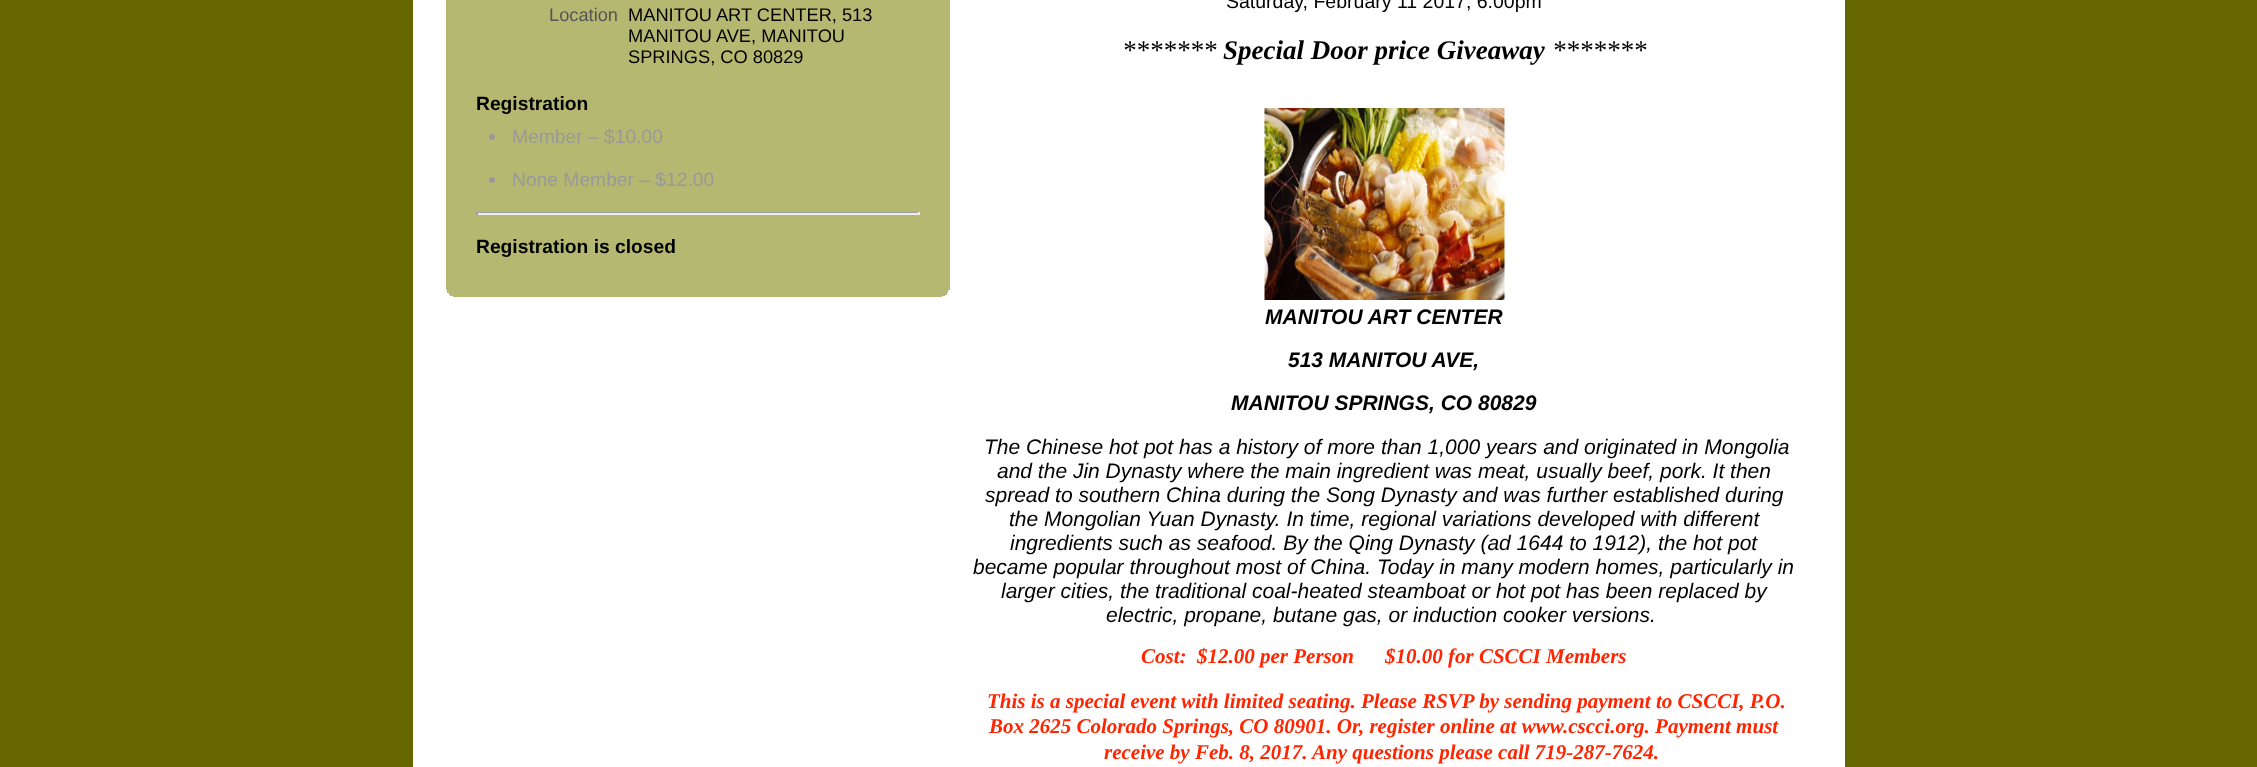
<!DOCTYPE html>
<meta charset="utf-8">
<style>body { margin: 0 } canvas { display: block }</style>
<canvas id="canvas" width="2257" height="767"></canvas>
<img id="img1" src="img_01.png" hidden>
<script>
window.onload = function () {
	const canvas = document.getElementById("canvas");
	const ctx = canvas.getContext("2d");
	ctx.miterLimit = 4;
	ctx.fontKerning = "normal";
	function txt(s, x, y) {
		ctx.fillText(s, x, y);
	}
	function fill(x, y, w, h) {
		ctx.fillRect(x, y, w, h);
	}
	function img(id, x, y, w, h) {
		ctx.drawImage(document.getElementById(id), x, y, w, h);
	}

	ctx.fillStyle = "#666600";
	fill(0, 0, 2257, 767);
	ctx.fillStyle = "#FFFFFF";
	fill(413, 0, 1432, 767);
	ctx.fillStyle = "#B5B870";
	fill(446, 0, 504, 290);
	ctx.fillStyle = "#999999";
	ctx.beginPath();
	ctx.arc(492, 137, 3, 0, Math.PI * 2);
	ctx.fill();
	ctx.beginPath();
	ctx.arc(492, 180, 3, 0, Math.PI * 2);
	ctx.fill();
	ctx.fillStyle = "#9F9F9F";
	fill(476, 212, 444, 1);
	ctx.fillStyle = "#EEEEEE";
	fill(918, 212, 2, 3);
	fill(476, 213, 444, 2);
	ctx.fillStyle = "#9F9F9F";
	fill(476, 212, 2, 3);
	ctx.fillStyle = "#B5B870";
	fill(447, 290, 501, 3);
	fill(449, 293, 498, 2);
	fill(450, 295, 495, 1);
	fill(453, 296, 489, 1);
	img("img1", 1264, 108, 241, 192);
	ctx.font = "18.25px Liberation Sans";
	ctx.fillStyle = "#555555";
	txt("Location", 549, 21);
	ctx.fillStyle = "#000000";
	txt("MANITOU ART CENTER, 513", 628, 21);
	txt("MANITOU AVE, MANITOU", 628, 42);
	txt("SPRINGS, CO 80829", 628, 63);
	ctx.font = "bold 19.25px Liberation Sans";
	txt("Registration", 476, 110);
	ctx.font = "19.25px Liberation Sans";
	ctx.fillStyle = "#999999";
	txt("Member – $10.00", 512, 143);
	txt("None Member – $12.00", 512, 186);
	ctx.font = "bold 19.25px Liberation Sans";
	ctx.fillStyle = "#000000";
	txt("Registration is closed", 476, 253);
	ctx.font = "19.5px Liberation Sans";
	txt("Saturday, February 11 2017, 6:00pm", 1226, 8);
	ctx.font = "italic 27px Liberation Serif";
	txt("*******", 1122, 59);
	ctx.font = "italic bold 27px Liberation Serif";
	txt("Special Door price Giveaway", 1223, 59);
	ctx.font = "italic 27px Liberation Serif";
	txt("*******", 1552, 59);
	ctx.font = "italic bold 21px Liberation Sans";
	txt("MANITOU ART CENTER", 1265, 324);
	txt("513 MANITOU AVE,", 1288, 367);
	txt("MANITOU SPRINGS, CO 80829", 1231, 410);
	ctx.font = "italic 21px Liberation Sans";
	txt("The Chinese hot pot has a history of more than 1,000 years and originated in Mongolia", 984, 454);
	txt("and the Jin Dynasty where the main ingredient was meat, usually beef, pork. It then", 997, 478);
	txt("spread to southern China during the Song Dynasty and was further established during", 985, 502);
	txt("the Mongolian Yuan Dynasty. In time, regional variations developed with different", 1009, 526);
	txt("ingredients such as seafood. By the Qing Dynasty (ad 1644 to 1912), the hot pot", 1010, 550);
	txt("became popular throughout most of China. Today in many modern homes, particularly in", 973, 574);
	txt("larger cities, the traditional coal-heated steamboat or hot pot has been replaced by", 1001, 598);
	txt("electric, propane, butane gas, or induction cooker versions.", 1106, 622);
	ctx.font = "italic bold 21px Liberation Serif";
	ctx.fillStyle = "#FF2500";
	txt("Cost:  $12.00 per Person", 1141, 663);
	txt("$10.00 for CSCCI Members", 1385, 663);
	txt("This is a special event with limited seating. Please RSVP by sending payment to CSCCI, P.O.", 987, 708);
	txt("Box 2625 Colorado Springs, CO 80901. Or, register online at www.cscci.org. Payment must", 989, 733);
	txt("receive by Feb. 8, 2017. Any questions please call 719-287-7624.", 1104, 759);
};
</script>
